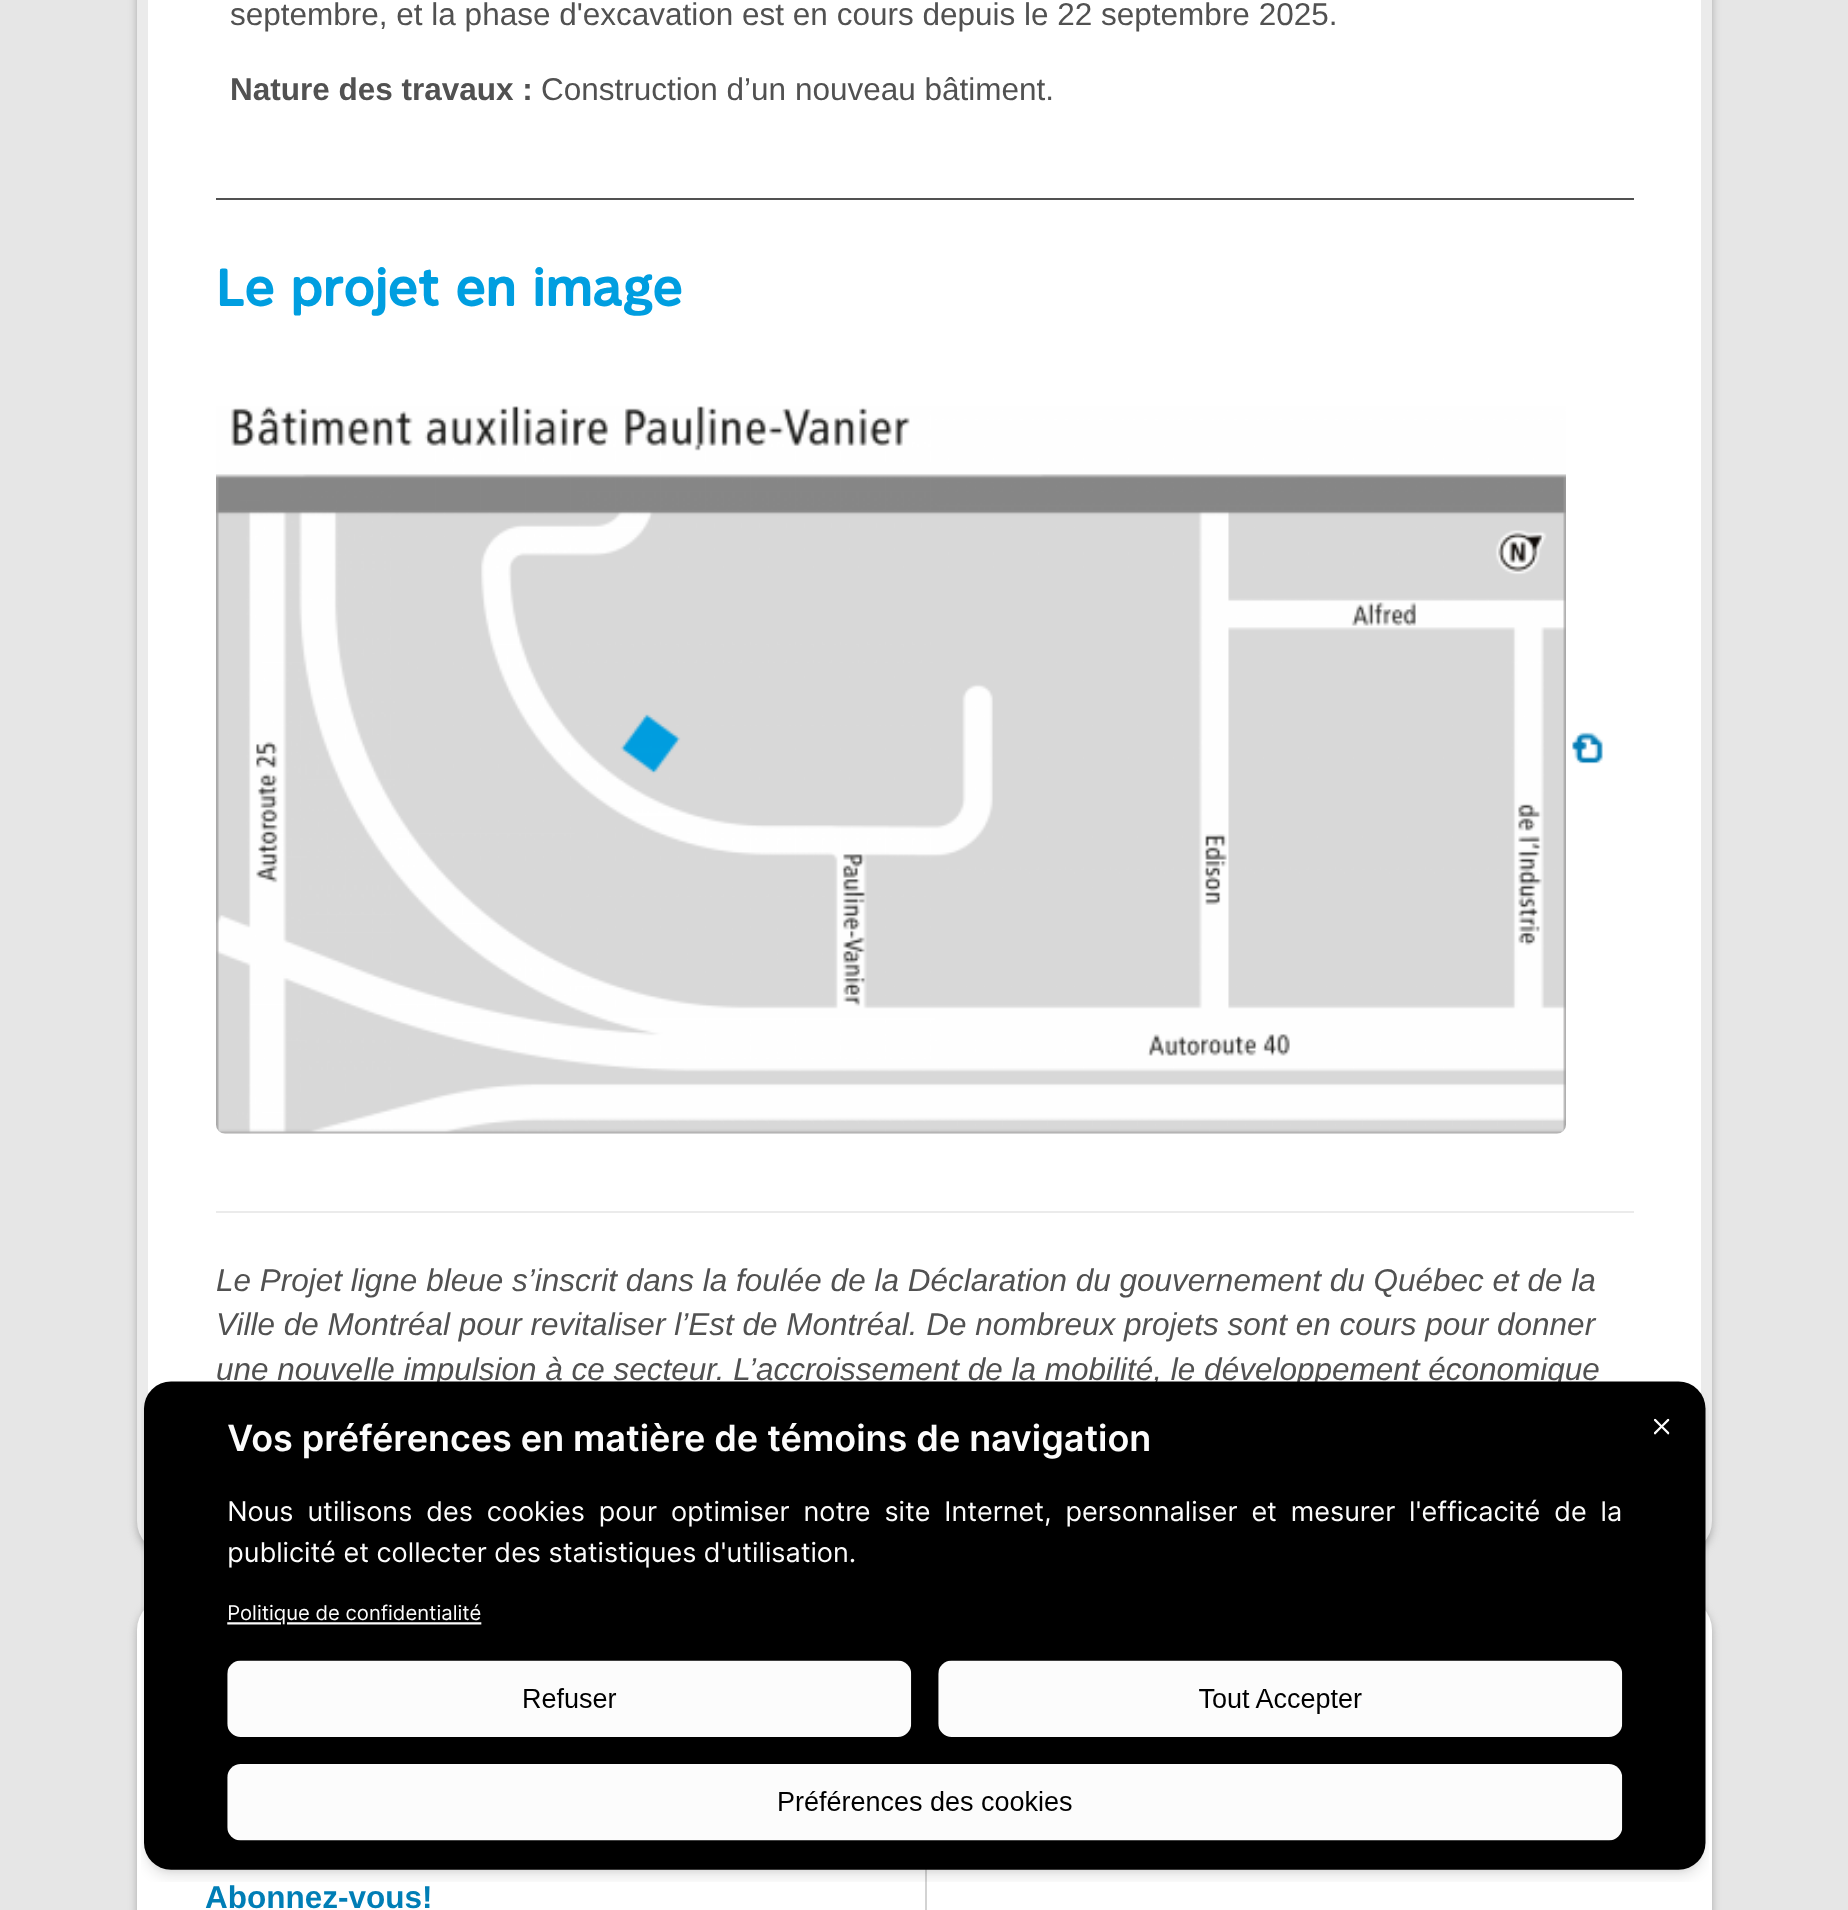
<!DOCTYPE html>
<meta charset="utf-8">
<style>body { margin: 0 } canvas { display: block }</style>
<canvas id="canvas" width="1848" height="1910"></canvas>
<img id="img1" src="img_01.png" hidden>
<img id="img2" src="img_02.png" hidden>
<img id="img3" src="img_03.png" hidden>
<script>
window.onload = function () {
	const canvas = document.getElementById("canvas");
	const ctx = canvas.getContext("2d");
	ctx.miterLimit = 4;
	ctx.fontKerning = "normal";
	function txt(s, x, y) {
		ctx.fillText(s, x, y);
	}
	function fill(x, y, w, h) {
		ctx.fillRect(x, y, w, h);
	}
	function round(x, y, w, h, r) {
		ctx.beginPath();
		ctx.roundRect(x, y, w, h, r);
		ctx.fill();
	}
	function img(id, x, y, w, h) {
		ctx.drawImage(document.getElementById(id), x, y, w, h);
	}

	ctx.fillStyle = "#E6E6E6";
	fill(0, 0, 1848, 1910);
	ctx.fillStyle = "#AAAAAA";
	ctx.filter = "blur(4.5px)";
	ctx.beginPath();
	ctx.roundRect(137, -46, 1575, 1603, 32);
	ctx.fill();
	ctx.filter = "none";
	ctx.fillStyle = "#FFFFFF";
	ctx.beginPath();
	ctx.roundRect(142.5, -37.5, 1564, 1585, 26.5);
	ctx.fill();
	ctx.strokeStyle = "#EBEBEB";
	ctx.lineWidth = 11;
	ctx.stroke();
	ctx.fillStyle = "#515151";
	fill(216, 198, 1418, 2);
	img("img1", 216, 406, 1350, 728);
	img("img2", 1572, 732, 31, 32);
	ctx.fillStyle = "#EBEBEB";
	fill(216, 1211, 1418, 2);
	ctx.fillStyle = "#AAAAAA";
	ctx.filter = "blur(4.5px)";
	ctx.beginPath();
	ctx.roundRect(137, 1602, 1575, 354, 32);
	ctx.fill();
	ctx.filter = "none";
	ctx.fillStyle = "#FFFFFF";
	round(137, 1598, 1575, 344, 32);
	ctx.fillStyle = "#D3D3D3";
	fill(925, 1869, 2, 41);
	ctx.font = "31.5px Liberation Sans";
	ctx.fillStyle = "#515151";
	txt("septembre, et la phase d'excavation est en cours depuis le 22 septembre 2025.", 230, 25);
	ctx.font = "bold 31.5px Liberation Sans";
	txt("Nature des travaux :", 230, 100);
	ctx.font = "31.5px Liberation Sans";
	txt("Construction d’un nouveau bâtiment.", 541, 100);
	ctx.font = "bold 49.5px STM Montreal";
	ctx.fillStyle = "#009EE0";
	txt("Le projet en image", 216, 306);
	ctx.font = "italic 31.5px Liberation Sans";
	ctx.fillStyle = "#515151";
	txt("Le Projet ligne bleue s’inscrit dans la foulée de la Déclaration du gouvernement du Québec et de la", 216, 1291);
	txt("Ville de Montréal pour revitaliser l’Est de Montréal. De nombreux projets sont en cours pour donner", 216, 1335);
	txt("une nouvelle impulsion à ce secteur. L’accroissement de la mobilité, le développement économique", 216, 1380);
	ctx.font = "bold 31.5px Liberation Sans";
	ctx.fillStyle = "#007EB6";
	txt("Abonnez-vous!", 205, 1908);
	img("img3", 141, 1381, 1568, 501);
};
</script>
